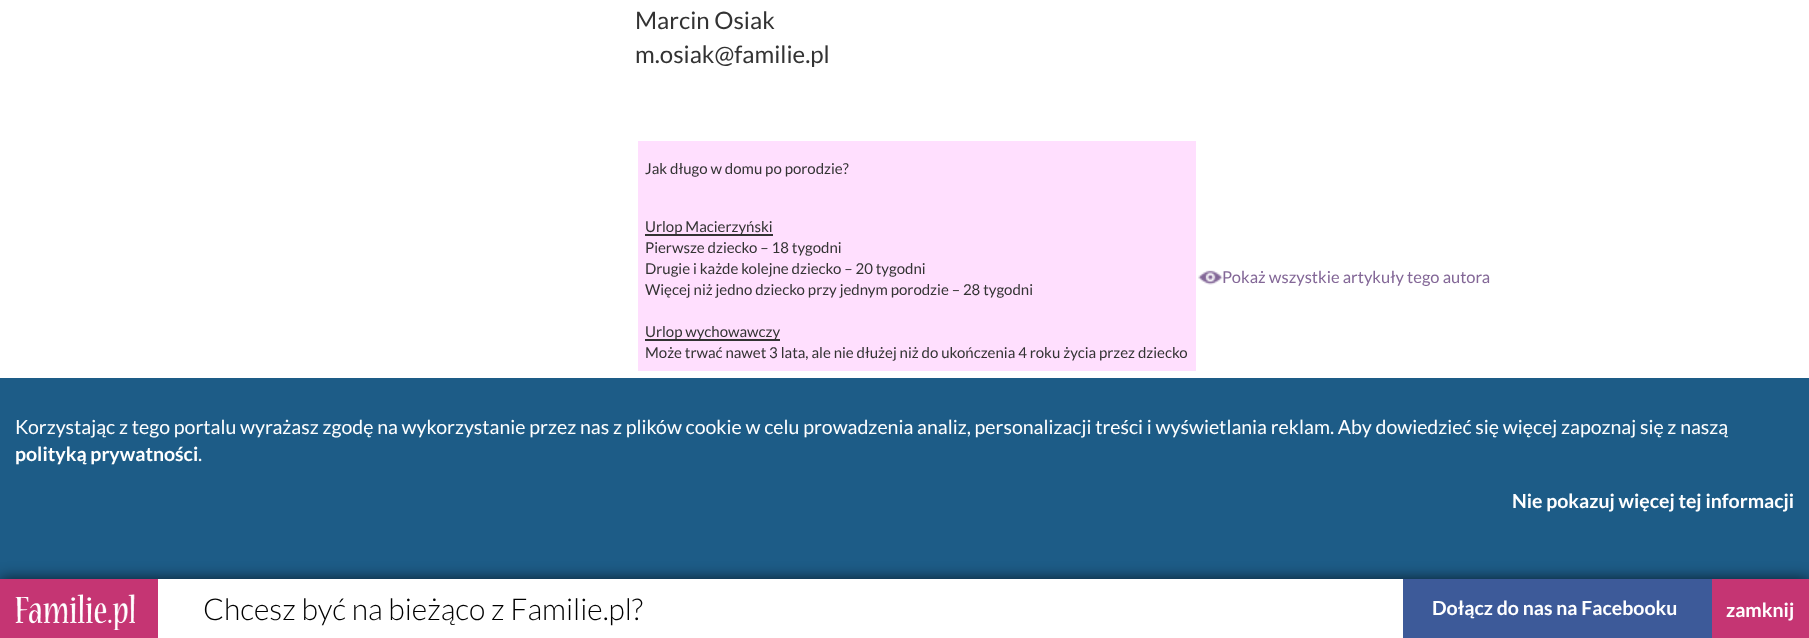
<!DOCTYPE html>
<meta charset="utf-8">
<style>body { margin: 0 } canvas { display: block }</style>
<canvas id="canvas" width="1809" height="638"></canvas>
<img id="img1" src="img_01.png" hidden>
<img id="img2" src="img_02.png" hidden>
<script>
window.onload = function () {
	const canvas = document.getElementById("canvas");
	const ctx = canvas.getContext("2d");
	ctx.miterLimit = 4;
	ctx.fontKerning = "normal";
	function txt(s, x, y) {
		ctx.fillText(s, x, y);
	}
	function fill(x, y, w, h) {
		ctx.fillRect(x, y, w, h);
	}
	function img(id, x, y, w, h) {
		ctx.drawImage(document.getElementById(id), x, y, w, h);
	}

	ctx.fillStyle = "#FFFFFF";
	fill(0, 0, 1809, 638);
	ctx.fillStyle = "#FFDFFE";
	fill(638, 141, 558, 230);
	ctx.fillStyle = "#333333";
	fill(645, 234, 128, 2);
	fill(645, 339, 135, 2);
	img("img1", 1198, 270, 25, 15);
	ctx.fillStyle = "#1D5C87";
	fill(0, 378, 1809, 201);
	ctx.fillStyle = "rgba(0, 0, 0, 0.7)";
	ctx.filter = "blur(7.5px)";
	ctx.beginPath();
	ctx.rect(0, 579, 1809, 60);
	ctx.fill();
	ctx.filter = "none";
	ctx.fillStyle = "#FFFFFF";
	fill(158, 579, 1245, 59);
	ctx.fillStyle = "#C53573";
	fill(0, 579, 158, 59);
	img("img2", 15, 594, 120, 36);
	ctx.fillStyle = "#3D5A99";
	fill(1403, 579, 309, 59);
	ctx.fillStyle = "#C53573";
	fill(1712, 579, 97, 59);
	ctx.font = "24px Lato";
	ctx.fillStyle = "#333333";
	txt("Marcin Osiak", 635, 29);
	txt("m.osiak@familie.pl", 635, 63);
	ctx.font = "15px Lato";
	txt("Jak długo w domu po porodzie?", 645, 174);
	txt("Urlop Macierzyński", 645, 232);
	txt("Pierwsze dziecko – 18 tygodni", 645, 253);
	txt("Drugie i każde kolejne dziecko – 20 tygodni", 645, 274);
	txt("Więcej niż jedno dziecko przy jednym porodzie – 28 tygodni", 645, 295);
	txt("Urlop wychowawczy", 645, 337);
	txt("Może trwać nawet 3 lata, ale nie dłużej niż do ukończenia 4 roku życia przez dziecko", 645, 358);
	ctx.font = "16.5px Lato";
	ctx.fillStyle = "#836797";
	txt("Pokaż wszystkie artykuły tego autora", 1222, 283);
	ctx.font = "19.5px Lato";
	ctx.fillStyle = "#FFFFFF";
	txt("Korzystając z tego portalu wyrażasz zgodę na wykorzystanie przez nas z plików cookie w celu prowadzenia analiz, personalizacji treści i wyświetlania reklam. Aby dowiedzieć się więcej zapoznaj się z naszą", 15, 434);
	ctx.font = "bold 19.5px Lato";
	txt("polityką prywatności", 15, 461);
	ctx.font = "19.5px Lato";
	txt(".", 198, 461);
	ctx.font = "bold 19.5px Lato";
	txt("Nie pokazuj więcej tej informacji", 1512, 508);
	ctx.font = "300 30px Lato";
	ctx.fillStyle = "#000000";
	txt("Chcesz być na bieżąco z Familie.pl?", 203, 620);
	ctx.font = "bold 19.5px Lato";
	ctx.fillStyle = "#FFFFFF";
	txt("Dołącz do nas na Facebooku", 1432, 615);
	txt("zamknij", 1726, 617);
};
</script>
